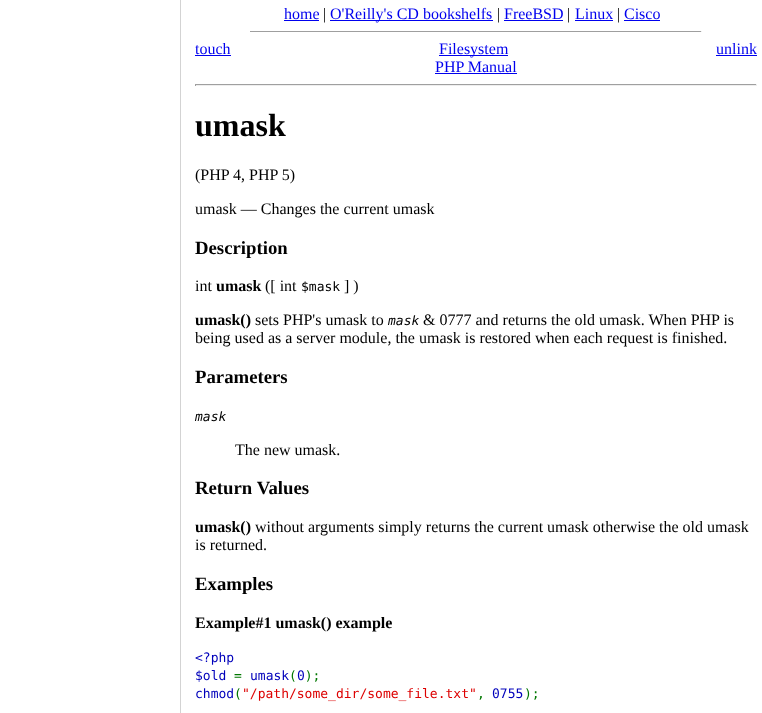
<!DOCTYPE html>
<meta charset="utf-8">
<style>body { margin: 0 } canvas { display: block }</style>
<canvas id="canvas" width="762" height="713"></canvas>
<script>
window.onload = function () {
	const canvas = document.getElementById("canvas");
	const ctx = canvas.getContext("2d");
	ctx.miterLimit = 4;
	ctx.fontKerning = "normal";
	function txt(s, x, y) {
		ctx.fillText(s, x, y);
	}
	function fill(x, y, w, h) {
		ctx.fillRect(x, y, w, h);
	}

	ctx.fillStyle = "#FFFFFF";
	fill(0, 0, 762, 713);
	ctx.fillStyle = "#D3D3D3";
	fill(180, 0, 1, 713);
	ctx.fillStyle = "#0000EE";
	fill(284, 20, 35, 1);
	fill(330, 20, 163, 1);
	fill(504, 20, 59, 1);
	fill(575, 20, 38, 1);
	fill(624, 20, 36, 1);
	ctx.fillStyle = "#9F9F9F";
	fill(250, 31, 452, 1);
	ctx.fillStyle = "#EEEEEE";
	fill(701, 31, 1, 1);
	ctx.fillStyle = "#0000EE";
	fill(195, 55, 36, 1);
	fill(439, 55, 69, 1);
	fill(716, 55, 41, 1);
	fill(435, 73, 82, 1);
	ctx.fillStyle = "#9F9F9F";
	fill(195, 84, 562, 1);
	ctx.fillStyle = "#EEEEEE";
	fill(756, 84, 1, 2);
	fill(195, 85, 562, 1);
	ctx.fillStyle = "#9F9F9F";
	fill(195, 84, 1, 2);
	ctx.font = "16px Liberation Serif";
	ctx.fillStyle = "#0000EE";
	txt("home", 284, 19);
	ctx.fillStyle = "#000000";
	txt("|", 323, 19);
	ctx.fillStyle = "#0000EE";
	txt("O'Reilly's CD bookshelfs", 330, 19);
	ctx.fillStyle = "#000000";
	txt("|", 497, 19);
	ctx.fillStyle = "#0000EE";
	txt("FreeBSD", 504, 19);
	ctx.fillStyle = "#000000";
	txt("|", 567, 19);
	ctx.fillStyle = "#0000EE";
	txt("Linux", 575, 19);
	ctx.fillStyle = "#000000";
	txt("|", 617, 19);
	ctx.fillStyle = "#0000EE";
	txt("Cisco", 624, 19);
	txt("touch", 195, 54);
	txt("Filesystem", 439, 54);
	txt("unlink", 716, 54);
	txt("PHP Manual", 435, 72);
	ctx.font = "bold 32px Liberation Serif";
	ctx.fillStyle = "#000000";
	txt("umask", 195, 136);
	ctx.font = "16px Liberation Serif";
	txt("(PHP 4, PHP 5)", 195, 180);
	txt("umask — Changes the current umask", 195, 214);
	ctx.font = "bold 18.75px Liberation Serif";
	txt("Description", 195, 254);
	ctx.font = "16px Liberation Serif";
	txt("int", 195, 291);
	ctx.font = "bold 16px Liberation Serif";
	txt("umask", 216, 291);
	ctx.font = "16px Liberation Serif";
	txt("([ int", 265, 291);
	ctx.font = "13px DejaVu Sans Mono";
	txt("$mask", 301, 291);
	ctx.font = "16px Liberation Serif";
	txt("] )", 344, 291);
	ctx.font = "bold 16px Liberation Serif";
	txt("umask()", 195, 325);
	ctx.font = "16px Liberation Serif";
	txt("sets PHP's umask to", 255, 325);
	ctx.font = "italic 13px DejaVu Sans Mono";
	txt("mask", 388, 325);
	ctx.font = "16px Liberation Serif";
	txt("& 0777 and returns the old umask. When PHP is", 423, 325);
	txt("being used as a server module, the umask is restored when each request is finished.", 195, 343);
	ctx.font = "bold 18.75px Liberation Serif";
	txt("Parameters", 195, 383);
	ctx.font = "italic 13px DejaVu Sans Mono";
	txt("mask", 195, 421);
	ctx.font = "16px Liberation Serif";
	txt("The new umask.", 235, 455);
	ctx.font = "bold 18.75px Liberation Serif";
	txt("Return Values", 195, 494);
	ctx.font = "bold 16px Liberation Serif";
	txt("umask()", 195, 532);
	ctx.font = "16px Liberation Serif";
	txt("without arguments simply returns the current umask otherwise the old umask", 255, 532);
	txt("is returned.", 195, 550);
	ctx.font = "bold 18.75px Liberation Serif";
	txt("Examples", 195, 590);
	ctx.font = "bold 16px Liberation Serif";
	txt("Example#1 umask() example", 195, 628);
	ctx.font = "13px DejaVu Sans Mono";
	ctx.fillStyle = "#0000BB";
	txt("<?php", 195, 662);
	txt("$old", 195, 680);
	ctx.fillStyle = "#007700";
	txt("=", 234, 680);
	ctx.fillStyle = "#0000BB";
	txt("umask 0", 250, 680);
	ctx.fillStyle = "#007700";
	txt("( );", 289, 680);
	ctx.fillStyle = "#0000BB";
	txt("chmod", 195, 698);
	ctx.fillStyle = "#007700";
	txt("(", 234, 698);
	ctx.fillStyle = "#DD0000";
	txt("\"/path/some_dir/some_file.txt\"", 242, 698);
	ctx.fillStyle = "#007700";
	txt(",", 477, 698);
	ctx.fillStyle = "#0000BB";
	txt("0755", 492, 698);
	ctx.fillStyle = "#007700";
	txt(");", 524, 698);
};
</script>
